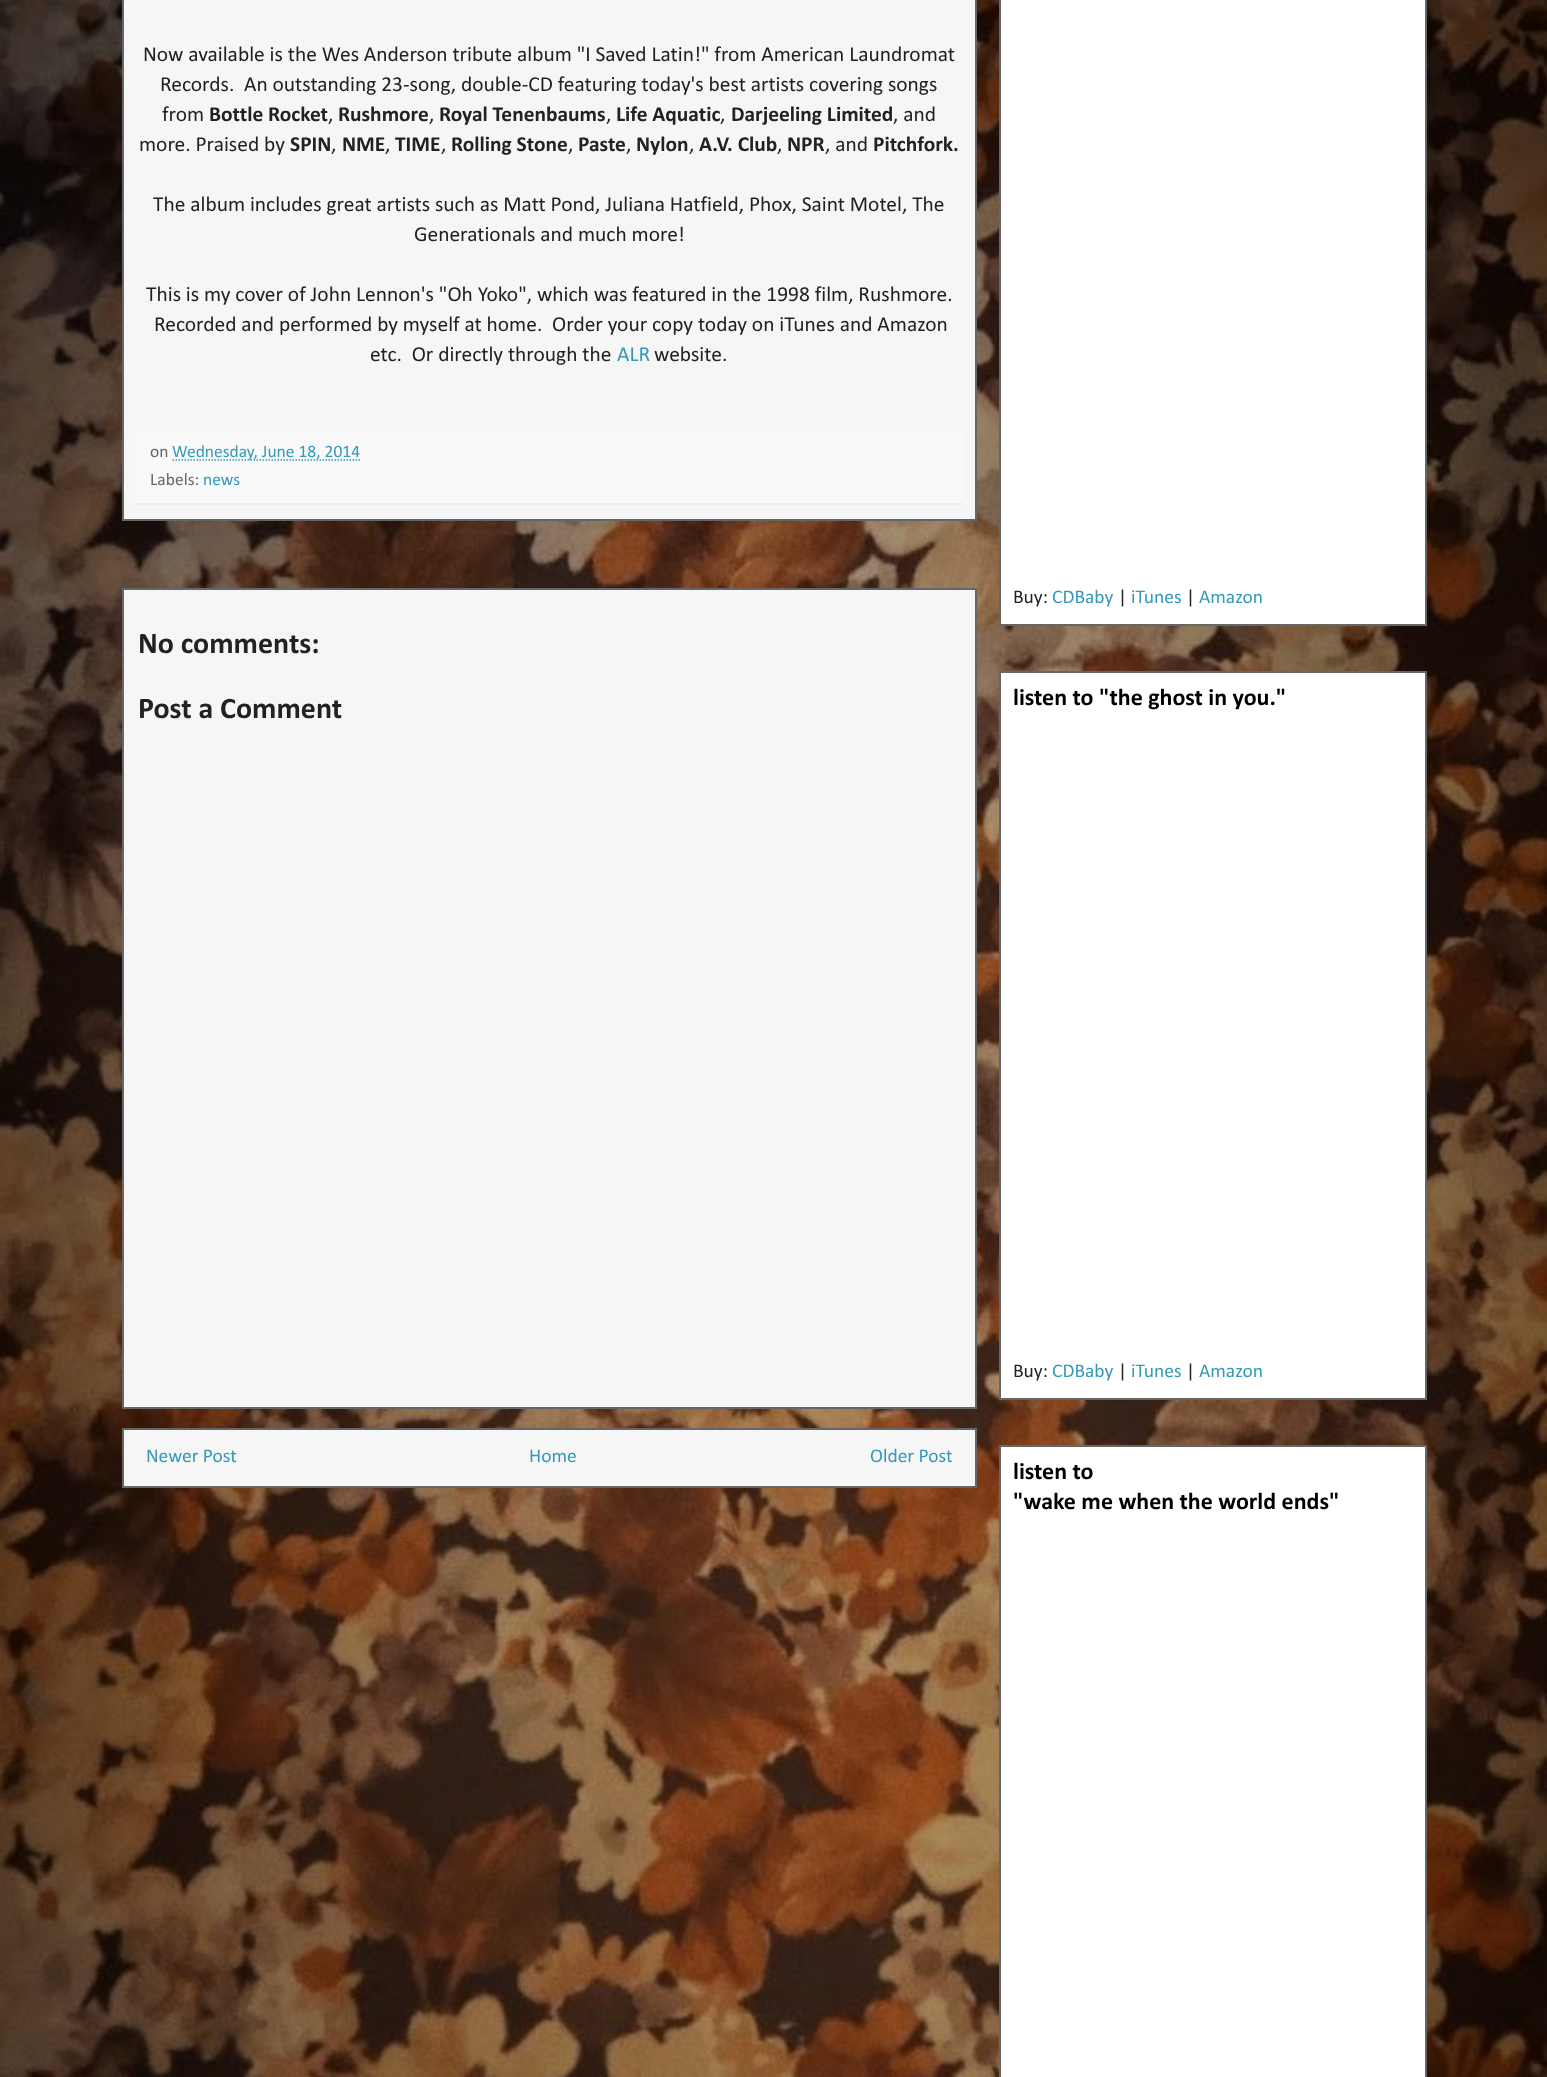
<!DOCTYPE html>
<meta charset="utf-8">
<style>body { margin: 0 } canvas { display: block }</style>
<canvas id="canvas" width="1547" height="2077"></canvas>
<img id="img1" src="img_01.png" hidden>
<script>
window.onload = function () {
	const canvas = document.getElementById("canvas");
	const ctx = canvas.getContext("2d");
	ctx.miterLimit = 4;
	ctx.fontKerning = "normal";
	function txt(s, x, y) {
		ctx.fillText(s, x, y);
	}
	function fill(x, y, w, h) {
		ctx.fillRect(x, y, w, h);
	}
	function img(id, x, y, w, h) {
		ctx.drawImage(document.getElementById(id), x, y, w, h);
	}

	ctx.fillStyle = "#FFFFFF";
	fill(0, 0, 1547, 2077);
	img("img1", 0, 0, 1547, 2077);
	ctx.fillStyle = "#F6F6F6";
	ctx.beginPath();
	ctx.rect(123, -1, 853, 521);
	ctx.fill();
	ctx.strokeStyle = "#666666";
	ctx.lineWidth = 2;
	ctx.stroke();
	ctx.fillStyle = "#F9F9F9";
	fill(135, 432, 828, 71);
	ctx.fillStyle = "#EEEEEE";
	fill(135, 503, 828, 2);
	ctx.beginPath();
	ctx.moveTo(172.5, 460);
	ctx.lineTo(361, 460);
	ctx.strokeStyle = "#3299BB";
	ctx.lineWidth = 1.5;
	ctx.setLineDash([1.5, 1.5]);
	ctx.stroke();
	ctx.fillStyle = "#F6F6F6";
	ctx.beginPath();
	ctx.rect(123, 589, 853, 819);
	ctx.fill();
	ctx.strokeStyle = "#666666";
	ctx.lineWidth = 2;
	ctx.setLineDash([]);
	ctx.stroke();
	ctx.beginPath();
	ctx.rect(123, 1429, 853, 58);
	ctx.fill();
	ctx.stroke();
	ctx.fillStyle = "#FFFFFF";
	ctx.beginPath();
	ctx.rect(1000, -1, 426, 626);
	ctx.fill();
	ctx.stroke();
	ctx.beginPath();
	ctx.rect(1000, 672, 426, 727);
	ctx.fill();
	ctx.stroke();
	ctx.beginPath();
	ctx.rect(1000, 1446, 426, 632);
	ctx.fill();
	ctx.stroke();
	ctx.font = "21.45px Calibri";
	ctx.fillStyle = "#222222";
	txt("Now available is the Wes Anderson tribute album \"I Saved Latin!\" from American Laundromat", 143, 61);
	txt("Records.", 160, 91);
	txt("An outstanding 23-song, double-CD featuring today's best artists covering songs", 244, 91);
	txt("from", 162, 121);
	ctx.font = "bold 21.45px Calibri";
	txt("Bottle Rocket", 209, 121);
	ctx.font = "21.45px Calibri";
	txt(",", 328, 121);
	ctx.font = "bold 21.45px Calibri";
	txt("Rushmore", 338, 121);
	ctx.font = "21.45px Calibri";
	txt(",", 429, 121);
	ctx.font = "bold 21.45px Calibri";
	txt("Royal Tenenbaums", 439, 121);
	ctx.font = "21.45px Calibri";
	txt(",", 606, 121);
	ctx.font = "bold 21.45px Calibri";
	txt("Life Aquatic", 616, 121);
	ctx.font = "21.45px Calibri";
	txt(",", 720, 121);
	ctx.font = "bold 21.45px Calibri";
	txt("Darjeeling Limited", 731, 121);
	ctx.font = "21.45px Calibri";
	txt(", and", 893, 121);
	txt("more. Praised by", 139, 151);
	ctx.font = "bold 21.45px Calibri";
	txt("SPIN", 290, 151);
	ctx.font = "21.45px Calibri";
	txt(",", 331, 151);
	ctx.font = "bold 21.45px Calibri";
	txt("NME", 342, 151);
	ctx.font = "21.45px Calibri";
	txt(",", 385, 151);
	ctx.font = "bold 21.45px Calibri";
	txt("TIME", 395, 151);
	ctx.font = "21.45px Calibri";
	txt(",", 441, 151);
	ctx.font = "bold 21.45px Calibri";
	txt("Rolling Stone", 451, 151);
	ctx.font = "21.45px Calibri";
	txt(",", 568, 151);
	ctx.font = "bold 21.45px Calibri";
	txt("Paste", 578, 151);
	ctx.font = "21.45px Calibri";
	txt(",", 626, 151);
	ctx.font = "bold 21.45px Calibri";
	txt("Nylon", 636, 151);
	ctx.font = "21.45px Calibri";
	txt(",", 689, 151);
	ctx.font = "bold 21.45px Calibri";
	txt("A.V. Club", 699, 151);
	ctx.font = "21.45px Calibri";
	txt(",", 777, 151);
	ctx.font = "bold 21.45px Calibri";
	txt("NPR", 787, 151);
	ctx.font = "21.45px Calibri";
	txt(", and", 825, 151);
	ctx.font = "bold 21.45px Calibri";
	txt("Pitchfork.", 873, 151);
	ctx.font = "21.45px Calibri";
	txt("The album includes great artists such as Matt Pond, Juliana Hatfield, Phox, Saint Motel, The", 153, 211);
	txt("Generationals and much more!", 414, 241);
	txt("This is my cover of John Lennon's \"Oh Yoko\", which was featured in the 1998 film, Rushmore.", 146, 301);
	txt("Recorded and performed by myself at home.  Order your copy today on iTunes and Amazon", 154, 331);
	txt("etc.  Or directly through the", 370, 361);
	ctx.fillStyle = "#3299BB";
	txt("ALR", 617, 361);
	ctx.fillStyle = "#222222";
	txt("website.", 654, 361);
	ctx.font = "17.5px Calibri";
	ctx.fillStyle = "#666666";
	txt("on", 150, 457);
	ctx.fillStyle = "#3299BB";
	txt("Wednesday, June 18, 2014", 172, 457);
	ctx.fillStyle = "#666666";
	txt("Labels:", 150, 485);
	ctx.fillStyle = "#3299BB";
	txt("news", 203, 485);
	ctx.font = "bold 30px Calibri";
	ctx.fillStyle = "#222222";
	txt("No comments:", 138, 653);
	txt("Post a Comment", 138, 718);
	ctx.font = "19.5px Calibri";
	ctx.fillStyle = "#3299BB";
	txt("Newer Post", 146, 1462);
	txt("Home", 529, 1462);
	txt("Older Post", 870, 1462);
	ctx.fillStyle = "#222222";
	txt("Buy:", 1013, 603);
	ctx.fillStyle = "#3299BB";
	txt("CDBaby", 1052, 603);
	ctx.fillStyle = "#222222";
	txt("|", 1118, 603);
	ctx.fillStyle = "#3299BB";
	txt("iTunes", 1131, 603);
	ctx.fillStyle = "#222222";
	txt("|", 1186, 603);
	ctx.fillStyle = "#3299BB";
	txt("Amazon", 1199, 603);
	ctx.font = "bold 24px Calibri";
	ctx.fillStyle = "#000000";
	txt("listen to \"the ghost in you.\"", 1013, 705);
	ctx.font = "19.5px Calibri";
	ctx.fillStyle = "#222222";
	txt("Buy:", 1013, 1377);
	ctx.fillStyle = "#3299BB";
	txt("CDBaby", 1052, 1377);
	ctx.fillStyle = "#222222";
	txt("|", 1118, 1377);
	ctx.fillStyle = "#3299BB";
	txt("iTunes", 1131, 1377);
	ctx.fillStyle = "#222222";
	txt("|", 1186, 1377);
	ctx.fillStyle = "#3299BB";
	txt("Amazon", 1199, 1377);
	ctx.font = "bold 24px Calibri";
	ctx.fillStyle = "#000000";
	txt("listen to", 1013, 1479);
	txt("\"wake me when the world ends\"", 1013, 1509);
};
</script>
